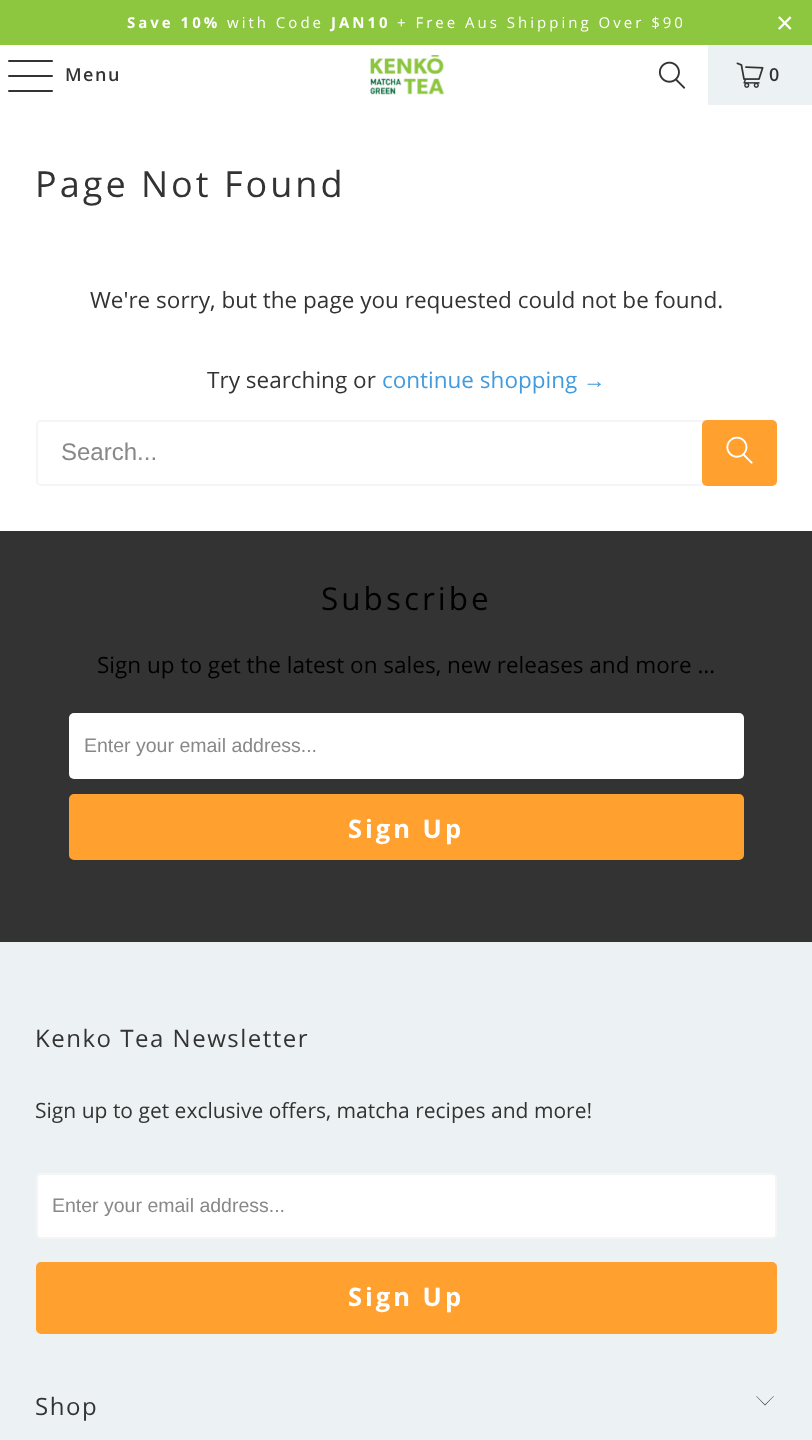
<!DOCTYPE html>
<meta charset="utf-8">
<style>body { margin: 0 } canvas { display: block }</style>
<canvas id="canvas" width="812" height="1440"></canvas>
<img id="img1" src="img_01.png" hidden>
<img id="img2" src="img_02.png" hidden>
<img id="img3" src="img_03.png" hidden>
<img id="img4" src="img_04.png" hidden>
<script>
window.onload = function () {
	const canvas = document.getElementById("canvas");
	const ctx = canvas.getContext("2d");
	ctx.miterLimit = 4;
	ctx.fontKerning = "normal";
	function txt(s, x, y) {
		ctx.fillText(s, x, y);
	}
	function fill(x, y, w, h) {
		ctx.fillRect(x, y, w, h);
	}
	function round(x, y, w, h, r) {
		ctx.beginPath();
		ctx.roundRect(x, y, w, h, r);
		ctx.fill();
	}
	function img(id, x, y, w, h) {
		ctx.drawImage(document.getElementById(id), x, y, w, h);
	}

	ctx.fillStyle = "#FFFFFF";
	fill(0, 0, 812, 1440);
	ctx.fillStyle = "#8DC63F";
	fill(0, 0, 812, 45);
	ctx.fillStyle = "#333333";
	round(8, 60, 45, 2, 1);
	round(8, 75, 45, 2, 1);
	round(8, 90, 45, 2, 1);
	img("img1", 370, 55, 75, 40);
	img("img2", 658, 61, 28, 28);
	ctx.fillStyle = "#ECF2F3";
	fill(708, 45, 104, 60);
	img("img3", 736, 62, 28, 26);
	ctx.beginPath();
	ctx.roundRect(37, 421, 739, 64, 4);
	ctx.strokeStyle = "#F5F5F5";
	ctx.lineWidth = 2;
	ctx.stroke();
	ctx.fillStyle = "#FFA02F";
	round(702, 420, 75, 66, 5);
	img("img4", 726, 436, 27, 28);
	ctx.fillStyle = "#333333";
	fill(0, 531, 812, 411);
	ctx.fillStyle = "#FFFFFF";
	round(69, 713, 675, 66, 5);
	ctx.fillStyle = "#FFA02F";
	ctx.beginPath();
	ctx.roundRect(70, 795, 673, 64, 4);
	ctx.fill();
	ctx.strokeStyle = "#FFA02F";
	ctx.stroke();
	ctx.fillStyle = "#ECF2F3";
	fill(0, 942, 812, 498);
	ctx.fillStyle = "#FFFFFF";
	ctx.beginPath();
	ctx.roundRect(37, 1174, 739, 64, 4);
	ctx.fill();
	ctx.strokeStyle = "#F5F5F5";
	ctx.stroke();
	ctx.fillStyle = "#FFA02F";
	ctx.beginPath();
	ctx.roundRect(37, 1263, 739, 70, 4);
	ctx.fill();
	ctx.strokeStyle = "#FFA02F";
	ctx.stroke();
	ctx.fillStyle = "#333333";
	ctx.beginPath();
	ctx.moveTo(765, 1405.5);
	ctx.lineTo(756, 1396);
	ctx.lineTo(756.5, 1396);
	ctx.lineTo(765, 1404.5);
	ctx.lineTo(773.5, 1396);
	ctx.lineTo(774, 1396);
	ctx.closePath();
	ctx.fill();
	ctx.letterSpacing = "3px";
	ctx.font = "bold 15px Open Sans";
	ctx.fillStyle = "#FFFFFF";
	txt("Save 10%", 127, 28);
	ctx.font = "15px Open Sans";
	txt("with Code", 227, 28);
	ctx.font = "bold 15px Open Sans";
	txt("JAN10", 331, 28);
	ctx.font = "15px Open Sans";
	txt("+ Free Aus Shipping Over $90", 397, 28);
	ctx.font = "30px Liberation Sans";
	txt("×", 776, 33);
	ctx.letterSpacing = "1.5px";
	ctx.font = "600 18px Open Sans";
	ctx.fillStyle = "#333333";
	txt("Menu", 65, 81);
	txt("0", 769, 81);
	ctx.letterSpacing = "3px";
	ctx.font = "36px Open Sans";
	txt("Page Not Found", 35, 197);
	ctx.letterSpacing = "0px";
	ctx.font = "22.5px Open Sans";
	txt("We're sorry, but the page you requested could not be found.", 90, 308);
	txt("Try searching or", 207, 388);
	ctx.fillStyle = "#419BDE";
	txt("continue shopping", 382, 388);
	ctx.font = "22.5px Liberation Sans";
	txt("→", 583, 388);
	ctx.font = "24px Liberation Sans";
	ctx.fillStyle = "#888888";
	txt("Search...", 61, 460);
	ctx.letterSpacing = "3px";
	ctx.font = "31.5px Open Sans";
	ctx.fillStyle = "#000000";
	txt("Subscribe", 321, 610);
	ctx.letterSpacing = "0px";
	ctx.font = "22.5px Open Sans";
	txt("Sign up to get the latest on sales, new releases and more …", 97, 673);
	ctx.font = "19.5px Liberation Sans";
	ctx.fillStyle = "#888888";
	txt("Enter your email address...", 84, 752);
	ctx.letterSpacing = "3px";
	ctx.font = "bold 25.5px Open Sans";
	ctx.fillStyle = "#FFFFFF";
	txt("Sign Up", 348, 838);
	ctx.letterSpacing = "1.5px";
	ctx.font = "24px Open Sans";
	ctx.fillStyle = "#333333";
	txt("Kenko Tea Newsletter", 35, 1047);
	ctx.letterSpacing = "0px";
	ctx.font = "21px Open Sans";
	txt("Sign up to get exclusive offers, matcha recipes and more!", 35, 1118);
	ctx.font = "19.5px Liberation Sans";
	ctx.fillStyle = "#888888";
	txt("Enter your email address...", 52, 1212);
	ctx.letterSpacing = "3px";
	ctx.font = "bold 25.5px Open Sans";
	ctx.fillStyle = "#FFFFFF";
	txt("Sign Up", 348, 1306);
	ctx.letterSpacing = "1.5px";
	ctx.font = "24px Open Sans";
	ctx.fillStyle = "#333333";
	txt("Shop", 35, 1415);
};
</script>
